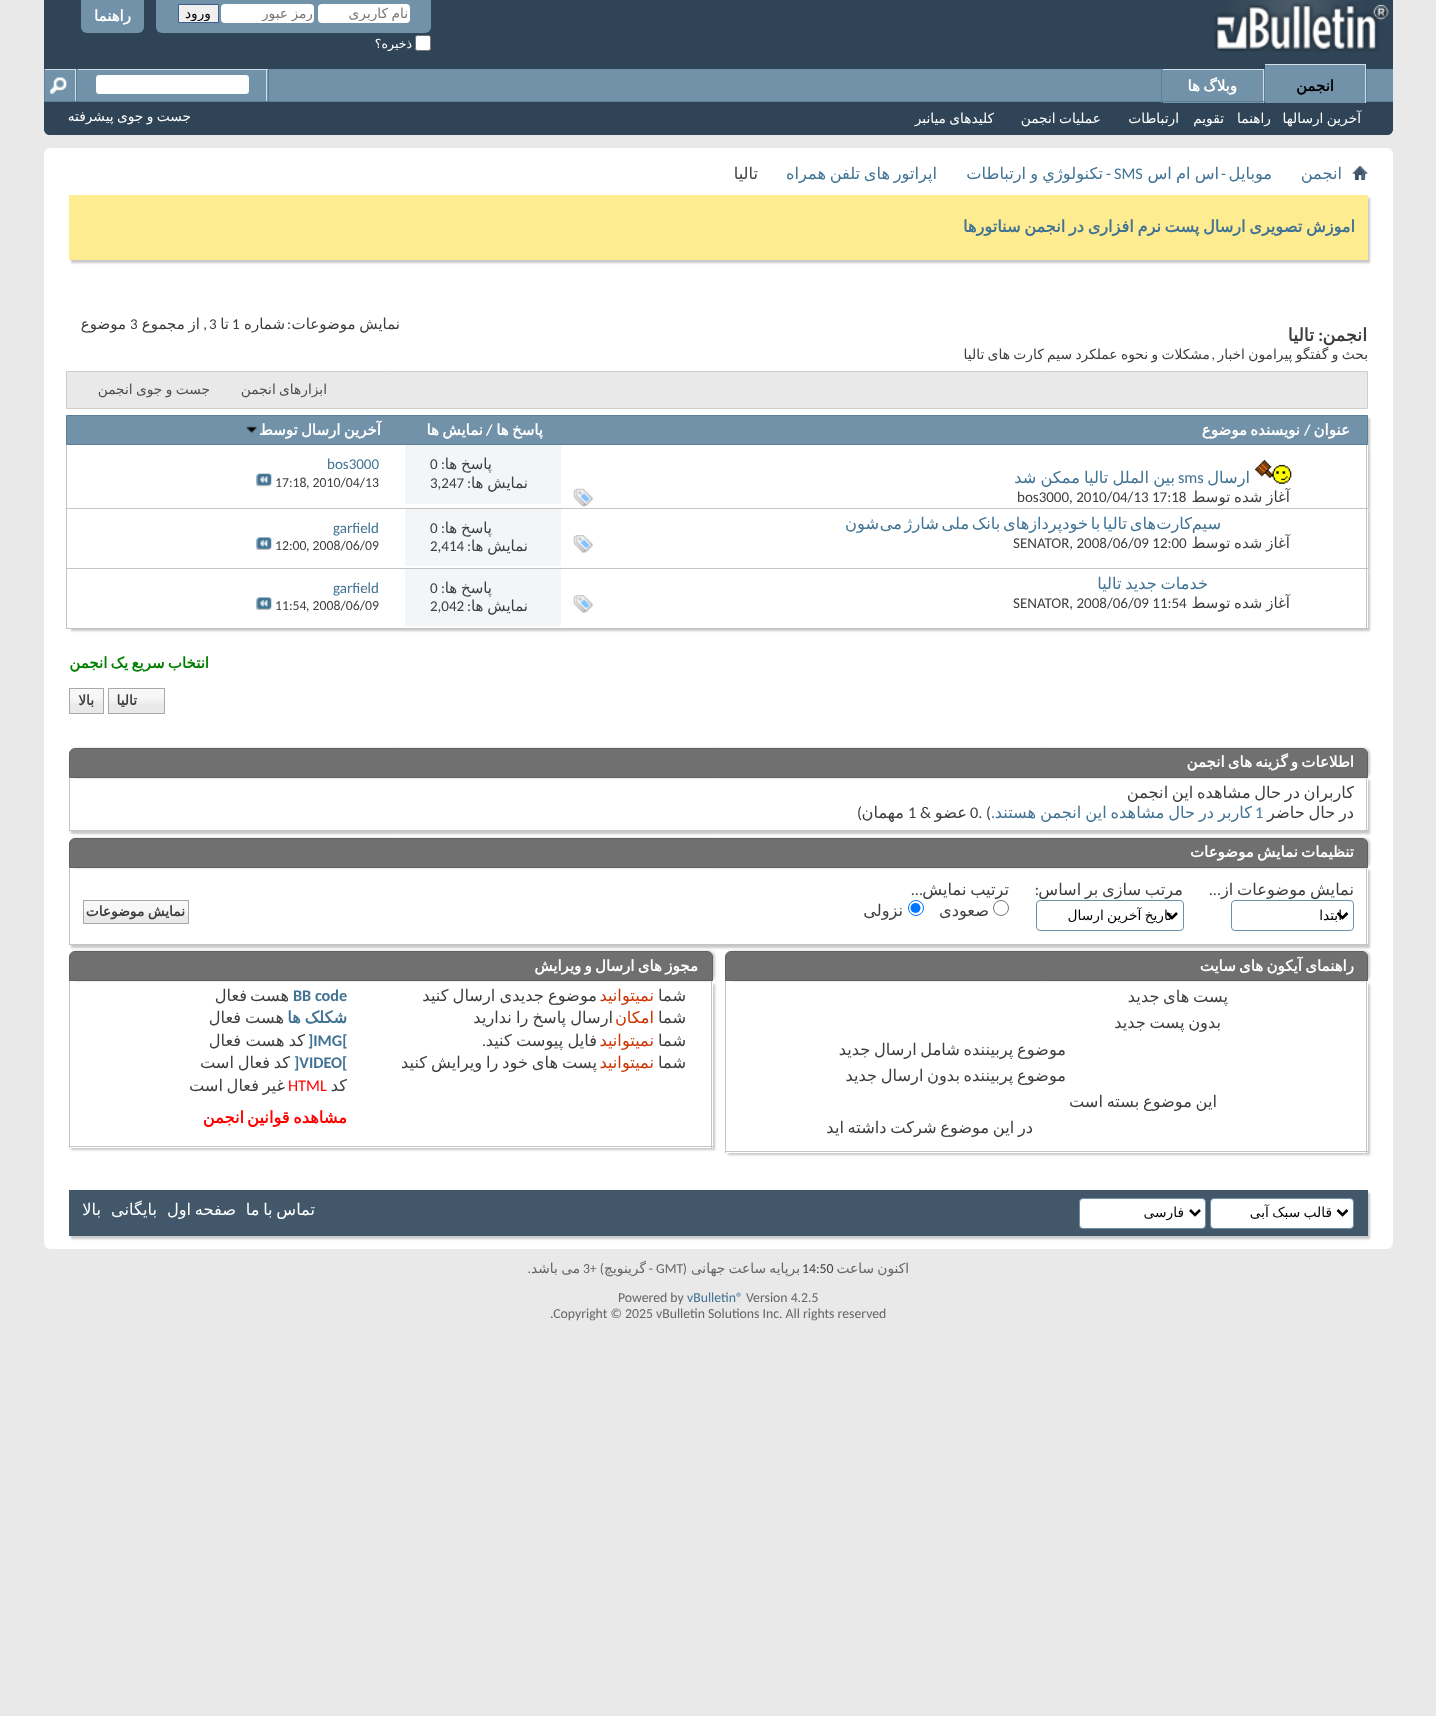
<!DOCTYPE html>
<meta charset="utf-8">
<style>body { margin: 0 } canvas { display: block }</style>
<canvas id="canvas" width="1436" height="1716"></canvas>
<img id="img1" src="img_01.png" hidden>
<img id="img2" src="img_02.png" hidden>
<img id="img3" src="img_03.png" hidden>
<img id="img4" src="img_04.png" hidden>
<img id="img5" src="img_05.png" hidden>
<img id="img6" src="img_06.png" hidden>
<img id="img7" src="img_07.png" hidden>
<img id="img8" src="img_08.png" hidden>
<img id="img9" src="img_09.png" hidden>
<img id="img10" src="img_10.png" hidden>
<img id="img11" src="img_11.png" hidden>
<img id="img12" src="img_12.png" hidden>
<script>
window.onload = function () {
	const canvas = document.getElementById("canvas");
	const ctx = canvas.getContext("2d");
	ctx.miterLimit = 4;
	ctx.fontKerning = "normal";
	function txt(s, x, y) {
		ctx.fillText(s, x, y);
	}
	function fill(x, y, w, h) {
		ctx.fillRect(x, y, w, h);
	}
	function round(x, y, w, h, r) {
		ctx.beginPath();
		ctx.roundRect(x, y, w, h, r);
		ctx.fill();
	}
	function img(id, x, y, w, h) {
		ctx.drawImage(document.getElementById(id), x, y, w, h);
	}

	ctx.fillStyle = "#E9E9E9";
	fill(0, 0, 1436, 1716);
	ctx.fillStyle = "#2F4456";
	ctx.beginPath();
	ctx.roundRect(44, 0, 1349, 135, [0, 0, 6, 6]);
	ctx.fill();
	img("img1", 1214, 0, 175, 52);
	ctx.fillStyle = "#7192A8";
	ctx.beginPath();
	ctx.roundRect(156, 0, 275, 33, [0, 0, 6, 6]);
	ctx.fill();
	ctx.fillStyle = "#FFFFFF";
	round(318, 4, 92, 19, 4);
	round(221, 4, 93, 19, 4);
	ctx.fillStyle = "#EFEFEF";
	ctx.beginPath();
	ctx.rect(178.5, 4.5, 40, 18);
	ctx.fill();
	ctx.strokeStyle = "#415D8D";
	ctx.stroke();
	ctx.fillStyle = "#FFFFFF";
	ctx.beginPath();
	ctx.roundRect(415.5, 35.5, 15, 15, 2);
	ctx.fill();
	ctx.strokeStyle = "#767676";
	ctx.stroke();
	ctx.fillStyle = "#7192A8";
	ctx.beginPath();
	ctx.roundRect(81, 0, 63, 33, [0, 0, 6, 6]);
	ctx.fill();
	ctx.fillStyle = "#2F4456";
	ctx.beginPath();
	ctx.roundRect(44, 69, 1349, 66, [0, 0, 6, 6]);
	ctx.fill();
	ctx.fillStyle = "#7192A8";
	fill(45, 69, 1348, 32);
	ctx.fillStyle = "#5A7F97";
	fill(1366, 69, 1, 32);
	fill(1264, 69, 1, 32);
	fill(1161, 69, 1, 34);
	ctx.fillStyle = "#7192A8";
	fill(1163, 101, 100, 2);
	ctx.fillStyle = "#CEDFEB";
	fill(1163, 69, 101, 1);
	fill(1263, 69, 1, 34);
	ctx.fillStyle = "#5A7F97";
	fill(44, 101, 1349, 1);
	ctx.fillStyle = "#7192A8";
	fill(1265, 65, 100, 38);
	ctx.fillStyle = "#CEDFEB";
	fill(1265, 64, 101, 1);
	fill(1365, 64, 1, 39);
	ctx.fillStyle = "#5A7F97";
	fill(268, 69, 1, 32);
	ctx.fillStyle = "#CEDFEB";
	fill(78, 69, 190, 1);
	fill(266, 69, 1, 32);
	ctx.fillStyle = "#FFFFFF";
	ctx.beginPath();
	ctx.roundRect(95.5, 74.5, 154, 20, 3.5);
	ctx.fill();
	ctx.strokeStyle = "#6B91AB";
	ctx.stroke();
	ctx.fillStyle = "#5A7F97";
	fill(76, 69, 1, 32);
	fill(44, 69, 1, 32);
	ctx.fillStyle = "#CEDFEB";
	fill(45, 69, 31, 1);
	fill(75, 69, 1, 32);
	img("img2", 49, 77, 18, 18);
	ctx.fillStyle = "#FFFFFF";
	round(44, 148, 1349, 1101, 6);
	img("img3", 1352, 166, 16, 14);
	ctx.fillStyle = "#C8C8C8";
	ctx.filter = "blur(1px)";
	ctx.beginPath();
	ctx.rect(71, 198, 1299, 65);
	ctx.fill();
	ctx.filter = "none";
	ctx.fillStyle = "#FFEB90";
	fill(69, 195, 1299, 65);
	ctx.fillStyle = "#E9E9E9";
	ctx.beginPath();
	ctx.rect(66.5, 371.5, 1301, 37);
	ctx.fill();
	ctx.strokeStyle = "#CECECE";
	ctx.stroke();
	ctx.fillStyle = "#C8C8C8";
	ctx.filter = "blur(1px)";
	ctx.beginPath();
	ctx.rect(69, 418, 1301, 30);
	ctx.fill();
	ctx.filter = "none";
	ctx.fillStyle = "#7192A8";
	ctx.beginPath();
	ctx.rect(66.5, 415.5, 1301, 29);
	ctx.fill();
	ctx.strokeStyle = "#5A7F97";
	ctx.stroke();
	img("img4", 246, 426, 12, 7);
	ctx.fillStyle = "#C8C8C8";
	ctx.filter = "blur(1px)";
	ctx.beginPath();
	ctx.rect(71, 448, 1299, 63);
	ctx.fill();
	ctx.filter = "none";
	ctx.fillStyle = "#FFFFFF";
	fill(67, 445, 1301, 63);
	ctx.fillStyle = "#C4C4C4";
	fill(1366, 445, 1, 64);
	fill(66, 508, 1302, 1);
	fill(66, 445, 1, 64);
	img("img5", 1254, 459, 38, 25);
	img("img6", 573, 488, 20, 19);
	ctx.fillStyle = "#F2F6F8";
	fill(405, 445, 156, 59);
	img("img7", 256, 473, 16, 14);
	ctx.fillStyle = "#C8C8C8";
	ctx.filter = "blur(1px)";
	ctx.beginPath();
	ctx.rect(71, 511, 1299, 60);
	ctx.fill();
	ctx.filter = "none";
	ctx.fillStyle = "#FFFFFF";
	fill(69, 509, 1299, 59);
	ctx.fillStyle = "#C4C4C4";
	fill(1366, 509, 1, 60);
	fill(66, 568, 1302, 1);
	fill(66, 509, 1, 60);
	img("img8", 573, 535, 20, 18);
	ctx.fillStyle = "#F2F6F8";
	fill(405, 509, 156, 57);
	img("img9", 256, 537, 16, 13);
	ctx.fillStyle = "#C8C8C8";
	ctx.filter = "blur(1px)";
	ctx.beginPath();
	ctx.rect(71, 571, 1299, 60);
	ctx.fill();
	ctx.filter = "none";
	ctx.fillStyle = "#FFFFFF";
	fill(69, 569, 1299, 59);
	ctx.fillStyle = "#C4C4C4";
	fill(1366, 569, 1, 60);
	fill(66, 628, 1302, 1);
	fill(66, 569, 1, 60);
	img("img8", 573, 595, 20, 18);
	ctx.fillStyle = "#F2F6F8";
	fill(405, 569, 156, 57);
	img("img9", 256, 597, 16, 13);
	ctx.fillStyle = "#E9E9E9";
	fill(109, 689, 55, 24);
	img("img10", 109, 689, 55, 15);
	fill(70, 689, 33, 24);
	img("img11", 70, 689, 33, 15);
	ctx.strokeStyle = "#A8A8A8";
	ctx.strokeRect(108.5, 688.5, 56, 25);
	ctx.strokeRect(69.5, 688.5, 34, 25);
	ctx.fillStyle = "#C8C8C8";
	ctx.filter = "blur(1px)";
	ctx.beginPath();
	ctx.rect(71, 780, 1299, 54);
	ctx.fill();
	ctx.filter = "none";
	ctx.fillStyle = "#FFFFFF";
	fill(70, 778, 1298, 52);
	ctx.fillStyle = "#C4C4C4";
	fill(1366, 778, 1, 53);
	fill(69, 830, 1299, 1);
	fill(69, 778, 1, 53);
	ctx.fillStyle = "#C8C8C8";
	ctx.filter = "blur(1px)";
	ctx.beginPath();
	ctx.roundRect(71, 748, 1299, 30, 6);
	ctx.fill();
	ctx.filter = "none";
	ctx.fillStyle = "#707070";
	ctx.beginPath();
	ctx.roundRect(69.5, 748.5, 1298, 29, [5.5, 5.5, 0, 0]);
	ctx.fill();
	ctx.strokeStyle = "#606060";
	ctx.stroke();
	ctx.fillStyle = "#C8C8C8";
	ctx.filter = "blur(1px)";
	ctx.beginPath();
	ctx.rect(71, 870, 1299, 78);
	ctx.fill();
	ctx.filter = "none";
	ctx.fillStyle = "#FFFFFF";
	fill(70, 868, 1298, 76);
	ctx.fillStyle = "#C4C4C4";
	fill(1366, 868, 1, 77);
	fill(69, 944, 1299, 1);
	fill(69, 868, 1, 77);
	ctx.fillStyle = "#C8C8C8";
	ctx.filter = "blur(1px)";
	ctx.beginPath();
	ctx.roundRect(71, 838, 1299, 30, 6);
	ctx.fill();
	ctx.filter = "none";
	ctx.fillStyle = "#707070";
	ctx.beginPath();
	ctx.roundRect(69.5, 838.5, 1298, 29, [5.5, 5.5, 0, 0]);
	ctx.fill();
	ctx.stroke();
	ctx.beginPath();
	ctx.roundRect(1231.5, 900.5, 122, 30, 3.5);
	ctx.strokeStyle = "#6B91AB";
	ctx.stroke();
	ctx.beginPath();
	ctx.moveTo(1337.5, 913);
	ctx.lineTo(1342.5, 918);
	ctx.lineTo(1347.5, 913);
	ctx.strokeStyle = "#000000";
	ctx.lineWidth = 2.5;
	ctx.stroke();
	ctx.beginPath();
	ctx.roundRect(1036.5, 900.5, 147, 30, 3.5);
	ctx.strokeStyle = "#6B91AB";
	ctx.lineWidth = 1;
	ctx.stroke();
	ctx.beginPath();
	ctx.moveTo(1167, 913);
	ctx.lineTo(1172, 918);
	ctx.lineTo(1177, 913);
	ctx.strokeStyle = "#000000";
	ctx.lineWidth = 2.5;
	ctx.stroke();
	ctx.beginPath();
	ctx.arc(1001, 908, 7.5, 0, Math.PI * 2);
	ctx.strokeStyle = "#767676";
	ctx.lineWidth = 1;
	ctx.stroke();
	ctx.beginPath();
	ctx.arc(916, 908, 7.5, 0, Math.PI * 2);
	ctx.strokeStyle = "#0075FF";
	ctx.stroke();
	ctx.fillStyle = "#0075FF";
	ctx.beginPath();
	ctx.arc(915.5, 908, 5, 0, Math.PI * 2);
	ctx.fill();
	ctx.fillStyle = "#E9E9E9";
	fill(84, 901, 104, 22);
	img("img12", 84, 901, 104, 15);
	ctx.strokeStyle = "#A8A8A8";
	ctx.strokeRect(83.5, 900.5, 105, 23);
	ctx.fillStyle = "#C8C8C8";
	ctx.filter = "blur(1px)";
	ctx.beginPath();
	ctx.rect(728, 984, 642, 171);
	ctx.fill();
	ctx.filter = "none";
	ctx.fillStyle = "#FFFFFF";
	fill(726, 982, 642, 171);
	ctx.fillStyle = "#C4C4C4";
	fill(1366, 981, 1, 172);
	fill(725, 1151, 643, 1);
	fill(725, 981, 1, 172);
	ctx.fillStyle = "#C8C8C8";
	ctx.filter = "blur(1px)";
	ctx.beginPath();
	ctx.roundRect(728, 951, 642, 30, 6);
	ctx.fill();
	ctx.filter = "none";
	ctx.fillStyle = "#707070";
	ctx.beginPath();
	ctx.roundRect(725.5, 951.5, 642, 29, [5.5, 5.5, 0, 0]);
	ctx.fill();
	ctx.strokeStyle = "#606060";
	ctx.stroke();
	ctx.fillStyle = "#C8C8C8";
	ctx.filter = "blur(1px)";
	ctx.beginPath();
	ctx.rect(71, 984, 644, 166);
	ctx.fill();
	ctx.filter = "none";
	ctx.fillStyle = "#FFFFFF";
	fill(70, 982, 643, 166);
	ctx.fillStyle = "#C4C4C4";
	fill(711, 981, 1, 167);
	fill(69, 1146, 644, 1);
	fill(69, 981, 1, 167);
	ctx.fillStyle = "#C8C8C8";
	ctx.filter = "blur(1px)";
	ctx.beginPath();
	ctx.roundRect(71, 951, 644, 30, 6);
	ctx.fill();
	ctx.filter = "none";
	ctx.fillStyle = "#707070";
	ctx.beginPath();
	ctx.roundRect(69.5, 951.5, 643, 29, [5.5, 5.5, 0, 0]);
	ctx.fill();
	ctx.stroke();
	ctx.fillStyle = "#C8C8C8";
	ctx.filter = "blur(1px)";
	ctx.beginPath();
	ctx.rect(71, 1193, 1299, 46);
	ctx.fill();
	ctx.filter = "none";
	ctx.fillStyle = "#425769";
	fill(69, 1190, 1299, 46);
	ctx.fillStyle = "#FFFFFF";
	ctx.beginPath();
	ctx.roundRect(1210.5, 1198.5, 143, 30, 3.5);
	ctx.fill();
	ctx.strokeStyle = "#6B91AB";
	ctx.stroke();
	ctx.beginPath();
	ctx.moveTo(1337.5, 1210);
	ctx.lineTo(1342.5, 1215);
	ctx.lineTo(1347.5, 1210);
	ctx.strokeStyle = "#000000";
	ctx.lineWidth = 2.5;
	ctx.stroke();
	ctx.beginPath();
	ctx.roundRect(1079.5, 1198.5, 126, 30, 3.5);
	ctx.fill();
	ctx.strokeStyle = "#6B91AB";
	ctx.lineWidth = 1;
	ctx.stroke();
	ctx.beginPath();
	ctx.moveTo(1190, 1210);
	ctx.lineTo(1195, 1215);
	ctx.lineTo(1200, 1210);
	ctx.strokeStyle = "#000000";
	ctx.lineWidth = 2.5;
	ctx.stroke();
	ctx.save();
	ctx.beginPath();
	ctx.rect(319, 5, 90, 16);
	ctx.clip();
	ctx.wordSpacing = "-1px";
	ctx.direction = "rtl";
	ctx.font = "13.75px DejaVu Sans";
	ctx.fillStyle = "#777777";
	txt("نام کاربری", 408, 18);
	ctx.restore();
	ctx.save();
	ctx.beginPath();
	ctx.rect(223, 5, 90, 16);
	ctx.clip();
	ctx.wordSpacing = "-1px";
	ctx.direction = "rtl";
	ctx.font = "13.75px DejaVu Sans";
	ctx.fillStyle = "#777777";
	txt("رمز عبور", 313, 18);
	ctx.restore();
	ctx.save();
	ctx.beginPath();
	ctx.rect(179, 5, 39, 16);
	ctx.clip();
	ctx.direction = "rtl";
	ctx.font = "13.75px DejaVu Sans";
	ctx.fillStyle = "#000000";
	txt("ورود", 211, 18);
	ctx.restore();
	ctx.direction = "rtl";
	ctx.font = "12.5px DejaVu Sans";
	txt("ذخیره؟", 412, 48);
	ctx.font = "bold 15px DejaVu Sans";
	txt("راهنما", 131, 21);
	ctx.fillStyle = "#000000";
	txt("انجمن", 1334, 91);
	ctx.wordSpacing = "-1.5px";
	ctx.fillStyle = "#FFFFFF";
	txt("وبلاگ ها", 1237, 91);
	ctx.wordSpacing = "-1px";
	ctx.font = "13.75px DejaVu Sans";
	txt("آخرین ارسالها", 1361, 123);
	ctx.wordSpacing = "0px";
	txt("راهنما", 1271, 123);
	txt("تقویم", 1224, 123);
	txt("ارتباطات", 1179, 123);
	ctx.wordSpacing = "-1px";
	txt("عملیات انجمن", 1101, 123);
	txt("کلیدهای میانبر", 994, 123);
	txt("جست و جوی پیشرفته", 191, 121);
	ctx.wordSpacing = "0px";
	ctx.font = "16.25px DejaVu Sans";
	ctx.fillStyle = "#417394";
	txt("انجمن", 1342, 179);
	txt("موبایل", 1272, 179);
	ctx.font = "16.25px Carlito";
	txt("-", 1226, 179);
	ctx.wordSpacing = "-1px";
	ctx.font = "16.25px DejaVu Sans";
	txt("اس ام اس", 1219, 179);
	ctx.wordSpacing = "0px";
	ctx.direction = "ltr";
	ctx.font = "16.25px Carlito";
	txt("SMS", 1114, 179);
	ctx.direction = "rtl";
	txt("-", 1111, 179);
	ctx.wordSpacing = "-1px";
	ctx.font = "16.25px DejaVu Sans";
	txt("تکنولوژي و ارتباطات", 1103, 179);
	ctx.wordSpacing = "-1.5px";
	txt("اپراتور های تلفن همراه", 937, 179);
	ctx.wordSpacing = "0px";
	ctx.fillStyle = "#3E3E3E";
	txt("تالیا", 758, 179);
	ctx.wordSpacing = "-1.5px";
	ctx.font = "bold 16.2px DejaVu Sans";
	ctx.fillStyle = "#417394";
	txt("اموزش تصویری ارسال پست نرم افزاری در انجمن سناتورها", 1355, 232);
	ctx.wordSpacing = "-1px";
	ctx.font = "15px DejaVu Sans";
	ctx.fillStyle = "#3E3E3E";
	txt("نمایش موضوعات", 400, 329);
	ctx.wordSpacing = "0px";
	ctx.font = "15px Carlito";
	txt(":", 291, 329);
	ctx.font = "15px DejaVu Sans";
	txt("شماره", 285, 329);
	ctx.direction = "ltr";
	ctx.font = "15px Carlito";
	txt("1", 232, 329);
	ctx.direction = "rtl";
	ctx.font = "15px DejaVu Sans";
	txt("تا", 229, 329);
	ctx.direction = "ltr";
	ctx.font = "15px Carlito";
	txt("3", 209, 329);
	ctx.direction = "rtl";
	txt(",", 207, 329);
	ctx.wordSpacing = "-1px";
	ctx.font = "15px DejaVu Sans";
	txt("از مجموع", 200, 329);
	ctx.wordSpacing = "0px";
	ctx.direction = "ltr";
	ctx.font = "15px Carlito";
	txt("‍3", 130, 329);
	ctx.direction = "rtl";
	ctx.font = "15px DejaVu Sans";
	txt("موضوع", 126, 329);
	ctx.font = "bold 17.5px DejaVu Sans";
	txt("انجمن", 1367, 341);
	ctx.font = "bold 17.5px Carlito";
	txt(":", 1323, 341);
	ctx.font = "bold 17.5px DejaVu Sans";
	txt("تالیا", 1314, 341);
	ctx.wordSpacing = "-1px";
	ctx.font = "13.8px DejaVu Sans";
	txt("بحث و گفتگو پیرامون اخبار", 1368, 359);
	ctx.wordSpacing = "0px";
	ctx.font = "13.8px Carlito";
	txt(",", 1215, 359);
	ctx.wordSpacing = "-1px";
	ctx.font = "13.8px DejaVu Sans";
	txt("مشکلات و نحوه عملکرد سیم کارت های تالیا", 1210, 359);
	ctx.font = "13.75px DejaVu Sans";
	ctx.fillStyle = "#4E4E4E";
	txt("ابزارهای انجمن", 327, 394);
	txt("جست و جوی انجمن", 210, 394);
	ctx.wordSpacing = "0px";
	ctx.font = "bold 15px DejaVu Sans";
	ctx.fillStyle = "#FFFFFF";
	txt("عنوان", 1350, 435);
	ctx.direction = "ltr";
	ctx.font = "bold 15px Carlito";
	txt("/", 1304, 435);
	ctx.wordSpacing = "-1.5px";
	ctx.direction = "rtl";
	ctx.font = "bold 15px DejaVu Sans";
	txt("نویسنده موضوع", 1300, 435);
	txt("پاسخ ها", 543, 435);
	ctx.wordSpacing = "0px";
	ctx.direction = "ltr";
	ctx.font = "bold 15px Carlito";
	txt("/", 486, 435);
	ctx.wordSpacing = "-1.5px";
	ctx.direction = "rtl";
	ctx.font = "bold 15px DejaVu Sans";
	txt("نمایش ها", 483, 435);
	txt("آخرین ارسال توسط", 381, 435);
	ctx.wordSpacing = "0px";
	ctx.font = "16.25px DejaVu Sans";
	ctx.fillStyle = "#417394";
	txt("ارسال", 1250, 483);
	ctx.direction = "ltr";
	ctx.font = "16.25px Carlito";
	txt("sms", 1178, 483);
	ctx.wordSpacing = "-1px";
	ctx.direction = "rtl";
	ctx.font = "16.25px DejaVu Sans";
	txt("بین الملل تالیا ممکن شد", 1175, 483);
	ctx.font = "15px DejaVu Sans";
	ctx.fillStyle = "#3E3E3E";
	txt("آغاز شده توسط", 1290, 502);
	ctx.wordSpacing = "0px";
	ctx.direction = "ltr";
	ctx.font = "15px Carlito";
	txt("bos3000, 2010/04/13 17:18", 1017, 502);
	ctx.wordSpacing = "-1px";
	ctx.direction = "rtl";
	ctx.font = "15px DejaVu Sans";
	txt("پاسخ ها", 492, 469);
	ctx.wordSpacing = "0px";
	ctx.font = "15px Carlito";
	txt(":", 445, 469);
	ctx.direction = "ltr";
	txt("0", 430, 469);
	ctx.wordSpacing = "-1px";
	ctx.direction = "rtl";
	ctx.font = "15px DejaVu Sans";
	txt("نمایش ها", 528, 488);
	ctx.wordSpacing = "0px";
	ctx.font = "15px Carlito";
	txt(":", 471, 488);
	ctx.direction = "ltr";
	txt("3,247", 430, 488);
	ctx.fillStyle = "#417394";
	txt("bos3000", 327, 469);
	ctx.font = "13.75px Carlito";
	ctx.fillStyle = "#3E3E3E";
	txt(", 2010/04/13", 306, 487);
	txt("17:18", 275, 487);
	ctx.direction = "rtl";
	ctx.font = "16.25px DejaVu Sans";
	ctx.fillStyle = "#417394";
	txt("سیم", 1221, 529);
	txt("کارت", 1192, 529);
	ctx.wordSpacing = "-2.5px";
	txt("های تالیا با خودپردازهای بانک ملی شارژ می", 1156, 529);
	ctx.wordSpacing = "0px";
	txt("شون", 879, 529);
	ctx.wordSpacing = "-1px";
	ctx.font = "15px DejaVu Sans";
	ctx.fillStyle = "#3E3E3E";
	txt("آغاز شده توسط", 1290, 548);
	ctx.wordSpacing = "0px";
	ctx.direction = "ltr";
	ctx.font = "15px Carlito";
	txt("SENATOR, 2008/06/09 12:00", 1013, 548);
	ctx.wordSpacing = "-1px";
	ctx.direction = "rtl";
	ctx.font = "15px DejaVu Sans";
	txt("پاسخ ها", 492, 533);
	ctx.wordSpacing = "0px";
	ctx.font = "15px Carlito";
	txt(":", 445, 533);
	ctx.direction = "ltr";
	txt("0", 430, 533);
	ctx.wordSpacing = "-1px";
	ctx.direction = "rtl";
	ctx.font = "15px DejaVu Sans";
	txt("نمایش ها", 528, 551);
	ctx.wordSpacing = "0px";
	ctx.font = "15px Carlito";
	txt(":", 471, 551);
	ctx.direction = "ltr";
	txt("2,414", 430, 551);
	ctx.fillStyle = "#417394";
	txt("garfield", 333, 533);
	ctx.font = "13.75px Carlito";
	ctx.fillStyle = "#3E3E3E";
	txt(", 2008/06/09", 306, 550);
	txt("12:00", 275, 550);
	ctx.wordSpacing = "-1.5px";
	ctx.direction = "rtl";
	ctx.font = "16.25px DejaVu Sans";
	ctx.fillStyle = "#417394";
	txt("خدمات جدید تالیا", 1208, 589);
	ctx.wordSpacing = "-1px";
	ctx.font = "15px DejaVu Sans";
	ctx.fillStyle = "#3E3E3E";
	txt("آغاز شده توسط", 1290, 608);
	ctx.wordSpacing = "0px";
	ctx.direction = "ltr";
	ctx.font = "15px Carlito";
	txt("SENATOR, 2008/06/09 11:54", 1013, 608);
	ctx.wordSpacing = "-1px";
	ctx.direction = "rtl";
	ctx.font = "15px DejaVu Sans";
	txt("پاسخ ها", 492, 593);
	ctx.wordSpacing = "0px";
	ctx.font = "15px Carlito";
	txt(":", 445, 593);
	ctx.direction = "ltr";
	txt("0", 430, 593);
	ctx.wordSpacing = "-1px";
	ctx.direction = "rtl";
	ctx.font = "15px DejaVu Sans";
	txt("نمایش ها", 528, 611);
	ctx.wordSpacing = "0px";
	ctx.font = "15px Carlito";
	txt(":", 471, 611);
	ctx.direction = "ltr";
	txt("2,042", 430, 611);
	ctx.fillStyle = "#417394";
	txt("garfield", 333, 593);
	ctx.font = "13.75px Carlito";
	ctx.fillStyle = "#3E3E3E";
	txt(", 2008/06/09", 306, 610);
	txt("11:54", 275, 610);
	ctx.wordSpacing = "-1.5px";
	ctx.direction = "rtl";
	ctx.font = "bold 15px DejaVu Sans";
	ctx.fillStyle = "#008000";
	txt("انتخاب سریع یک انجمن", 209, 668);
	ctx.wordSpacing = "0px";
	ctx.font = "bold 13.75px DejaVu Sans";
	ctx.fillStyle = "#3E3E3E";
	txt("تالیا", 137, 705);
	txt("بالا", 94, 705);
	ctx.wordSpacing = "-1.5px";
	ctx.font = "bold 15px DejaVu Sans";
	ctx.fillStyle = "#FFFFFF";
	txt("اطلاعات و گزینه های انجمن", 1354, 767);
	ctx.font = "16.25px DejaVu Sans";
	ctx.fillStyle = "#3E3E3E";
	txt("کاربران در حال مشاهده این انجمن", 1354, 798);
	txt("در حال حاضر", 1354, 818);
	ctx.wordSpacing = "0px";
	ctx.direction = "ltr";
	ctx.font = "16.25px Carlito";
	ctx.fillStyle = "#417394";
	txt("1", 1255, 818);
	ctx.wordSpacing = "-1.25px";
	ctx.direction = "rtl";
	ctx.font = "16.25px DejaVu Sans";
	txt("کاربر در حال مشاهده این انجمن هستند", 1252, 818);
	ctx.wordSpacing = "0px";
	ctx.font = "16.25px Carlito";
	txt(".", 995, 818);
	ctx.direction = "ltr";
	ctx.fillStyle = "#3E3E3E";
	txt("0. (", 970, 818);
	ctx.direction = "rtl";
	ctx.font = "16.25px DejaVu Sans";
	txt("عضو", 967, 818);
	ctx.font = "16.25px Carlito";
	txt("&", 931, 818);
	ctx.direction = "ltr";
	txt("1", 908, 818);
	ctx.direction = "rtl";
	ctx.font = "16.25px DejaVu Sans";
	txt("مهمان", 904, 818);
	ctx.font = "16.25px Carlito";
	txt(")", 862, 818);
	ctx.wordSpacing = "-1.5px";
	ctx.font = "bold 15px DejaVu Sans";
	ctx.fillStyle = "#FFFFFF";
	txt("تنظیمات نمایش موضوعات", 1354, 857);
	ctx.font = "16.25px DejaVu Sans";
	ctx.fillStyle = "#3E3E3E";
	txt("نمایش موضوعات از", 1354, 895);
	ctx.wordSpacing = "0px";
	ctx.font = "16.25px Carlito";
	txt("...", 1221, 895);
	ctx.font = "13.75px DejaVu Sans";
	ctx.fillStyle = "#000000";
	txt("ابتدا", 1342, 920);
	ctx.wordSpacing = "-1.5px";
	ctx.font = "16.25px DejaVu Sans";
	ctx.fillStyle = "#3E3E3E";
	txt("مرتب سازی بر اساس", 1183, 895);
	ctx.wordSpacing = "0px";
	ctx.font = "16.25px Carlito";
	txt(":", 1039, 895);
	ctx.wordSpacing = "-1px";
	ctx.font = "13.75px DejaVu Sans";
	ctx.fillStyle = "#000000";
	txt("تاریخ آخرین ارسال", 1172, 920);
	ctx.wordSpacing = "-1.5px";
	ctx.font = "16.25px DejaVu Sans";
	ctx.fillStyle = "#3E3E3E";
	txt("ترتیب نمایش", 1009, 895);
	ctx.wordSpacing = "0px";
	ctx.font = "16.25px Carlito";
	txt("...", 923, 895);
	ctx.font = "16.25px DejaVu Sans";
	txt("صعودی", 989, 916);
	txt("نزولی", 903, 916);
	ctx.wordSpacing = "-1px";
	ctx.font = "bold 13.75px DejaVu Sans";
	txt("نمایش موضوعات", 185, 916);
	ctx.wordSpacing = "-1.5px";
	ctx.font = "bold 15px DejaVu Sans";
	ctx.fillStyle = "#FFFFFF";
	txt("راهنمای آیکون های سایت", 1354, 971);
	ctx.font = "16.25px DejaVu Sans";
	ctx.fillStyle = "#3E3E3E";
	txt("پست های جدید", 1228, 1002);
	txt("بدون پست جدید", 1221, 1028);
	txt("موضوع پربیننده شامل ارسال جدید", 1066, 1055);
	txt("موضوع پربیننده بدون ارسال جدید", 1066, 1081);
	txt("این موضوع بسته است", 1217, 1107);
	txt("در این موضوع شرکت داشته اید", 1033, 1133);
	ctx.font = "bold 15px DejaVu Sans";
	ctx.fillStyle = "#FFFFFF";
	txt("مجوز های ارسال و ویرایش", 698, 971);
	ctx.wordSpacing = "0px";
	ctx.font = "16.25px DejaVu Sans";
	ctx.fillStyle = "#3E3E3E";
	txt("شما", 686, 1001);
	ctx.fillStyle = "#CC3300";
	txt("نمیتوانید", 654, 1001);
	ctx.wordSpacing = "-1px";
	ctx.fillStyle = "#3E3E3E";
	txt("موضوع جدیدی ارسال کنید", 597, 1001);
	ctx.wordSpacing = "0px";
	txt("شما", 686, 1023);
	ctx.fillStyle = "#CC3300";
	txt("امکان", 654, 1023);
	ctx.wordSpacing = "-1px";
	ctx.fillStyle = "#3E3E3E";
	txt("ارسال پاسخ را ندارید", 613, 1023);
	ctx.wordSpacing = "0px";
	txt("شما", 686, 1046);
	ctx.fillStyle = "#CC3300";
	txt("نمیتوانید", 654, 1046);
	ctx.wordSpacing = "-1px";
	ctx.fillStyle = "#3E3E3E";
	txt("فایل پیوست کنید", 597, 1046);
	ctx.wordSpacing = "0px";
	ctx.font = "16.25px Carlito";
	txt(".", 486, 1046);
	ctx.font = "16.25px DejaVu Sans";
	txt("شما", 686, 1068);
	ctx.fillStyle = "#CC3300";
	txt("نمیتوانید", 654, 1068);
	ctx.wordSpacing = "-1.25px";
	ctx.fillStyle = "#3E3E3E";
	txt("پست های خود را ویرایش کنید", 597, 1068);
	ctx.wordSpacing = "0px";
	ctx.direction = "ltr";
	ctx.font = "bold 16.25px Carlito";
	ctx.fillStyle = "#417394";
	txt("BB code", 293, 1001);
	ctx.direction = "rtl";
	ctx.font = "16.25px DejaVu Sans";
	ctx.fillStyle = "#3E3E3E";
	txt("هست", 289, 1001);
	txt("فعال", 247, 1001);
	ctx.wordSpacing = "-1.5px";
	ctx.font = "bold 16.25px DejaVu Sans";
	ctx.fillStyle = "#417394";
	txt("شکلک ها", 347, 1023);
	ctx.wordSpacing = "0px";
	ctx.font = "16.25px DejaVu Sans";
	ctx.fillStyle = "#3E3E3E";
	txt("هست", 284, 1023);
	txt("فعال", 241, 1023);
	ctx.direction = "ltr";
	ctx.font = "bold 16.25px Carlito";
	ctx.fillStyle = "#417394";
	txt("]IMG[", 308, 1046);
	ctx.wordSpacing = "-1px";
	ctx.direction = "rtl";
	ctx.font = "16.25px DejaVu Sans";
	ctx.fillStyle = "#3E3E3E";
	txt("کد هست", 305, 1046);
	ctx.wordSpacing = "0px";
	txt("فعال", 241, 1046);
	ctx.direction = "ltr";
	ctx.font = "bold 16.25px Carlito";
	ctx.fillStyle = "#417394";
	txt("]VIDEO[", 294, 1068);
	ctx.direction = "rtl";
	ctx.font = "16.25px DejaVu Sans";
	ctx.fillStyle = "#3E3E3E";
	txt("کد", 290, 1068);
	txt("فعال", 270, 1068);
	txt("است", 234, 1068);
	txt("کد", 347, 1091);
	ctx.direction = "ltr";
	ctx.font = "16.25px Carlito";
	ctx.fillStyle = "#FF0000";
	txt("HTML", 288, 1091);
	ctx.wordSpacing = "-1.5px";
	ctx.direction = "rtl";
	ctx.font = "16.25px DejaVu Sans";
	ctx.fillStyle = "#3E3E3E";
	txt("غیر فعال", 285, 1091);
	ctx.wordSpacing = "0px";
	txt("است", 223, 1091);
	ctx.wordSpacing = "-1.5px";
	ctx.font = "bold 16.25px DejaVu Sans";
	ctx.fillStyle = "#FF0000";
	txt("مشاهده قوانین", 347, 1123);
	ctx.wordSpacing = "0px";
	txt("انجمن", 244, 1123);
	ctx.wordSpacing = "-1px";
	ctx.font = "13.75px DejaVu Sans";
	ctx.fillStyle = "#000000";
	txt("قالب سبک آبی", 1332, 1217);
	ctx.wordSpacing = "0px";
	txt("فارسی", 1184, 1217);
	ctx.wordSpacing = "-1.5px";
	ctx.font = "16.25px DejaVu Sans";
	ctx.fillStyle = "#FFFFFF";
	txt("تماس با ما", 315, 1215);
	txt("صفحه اول", 236, 1215);
	ctx.wordSpacing = "0px";
	txt("بایگانی", 157, 1215);
	txt("بالا", 101, 1215);
	ctx.wordSpacing = "-1px";
	ctx.font = "13.75px DejaVu Sans";
	ctx.fillStyle = "#666666";
	txt("اکنون ساعت", 909, 1273);
	ctx.wordSpacing = "0px";
	ctx.direction = "ltr";
	ctx.font = "13.75px Carlito";
	ctx.fillStyle = "#3E3E3E";
	txt("14:50", 802, 1273);
	ctx.wordSpacing = "-1px";
	ctx.direction = "rtl";
	ctx.font = "13.75px DejaVu Sans";
	ctx.fillStyle = "#666666";
	txt("برپایه ساعت جهانی", 800, 1273);
	ctx.wordSpacing = "0px";
	ctx.font = "13.75px Carlito";
	txt("(", 687, 1273);
	ctx.direction = "ltr";
	txt("GMT", 656, 1273);
	ctx.direction = "rtl";
	txt("-", 653, 1273);
	ctx.font = "13.75px DejaVu Sans";
	txt("گرینویچ", 646, 1273);
	ctx.font = "13.75px Carlito";
	txt(") +", 604, 1273);
	ctx.direction = "ltr";
	txt("3", 583, 1273);
	ctx.wordSpacing = "-1px";
	ctx.direction = "rtl";
	ctx.font = "13.75px DejaVu Sans";
	txt("می باشد", 580, 1273);
	ctx.wordSpacing = "0px";
	ctx.font = "13.75px Carlito";
	txt(".", 531, 1273);
	ctx.direction = "ltr";
	txt("Version 4.2.5", 746, 1302);
	ctx.fillStyle = "#417394";
	txt("vBulletin®", 687, 1302);
	ctx.fillStyle = "#666666";
	txt("Powered by", 618, 1302);
	txt(".Copyright © 2025 vBulletin Solutions Inc. All rights reserved", 550, 1318);
};
</script>
